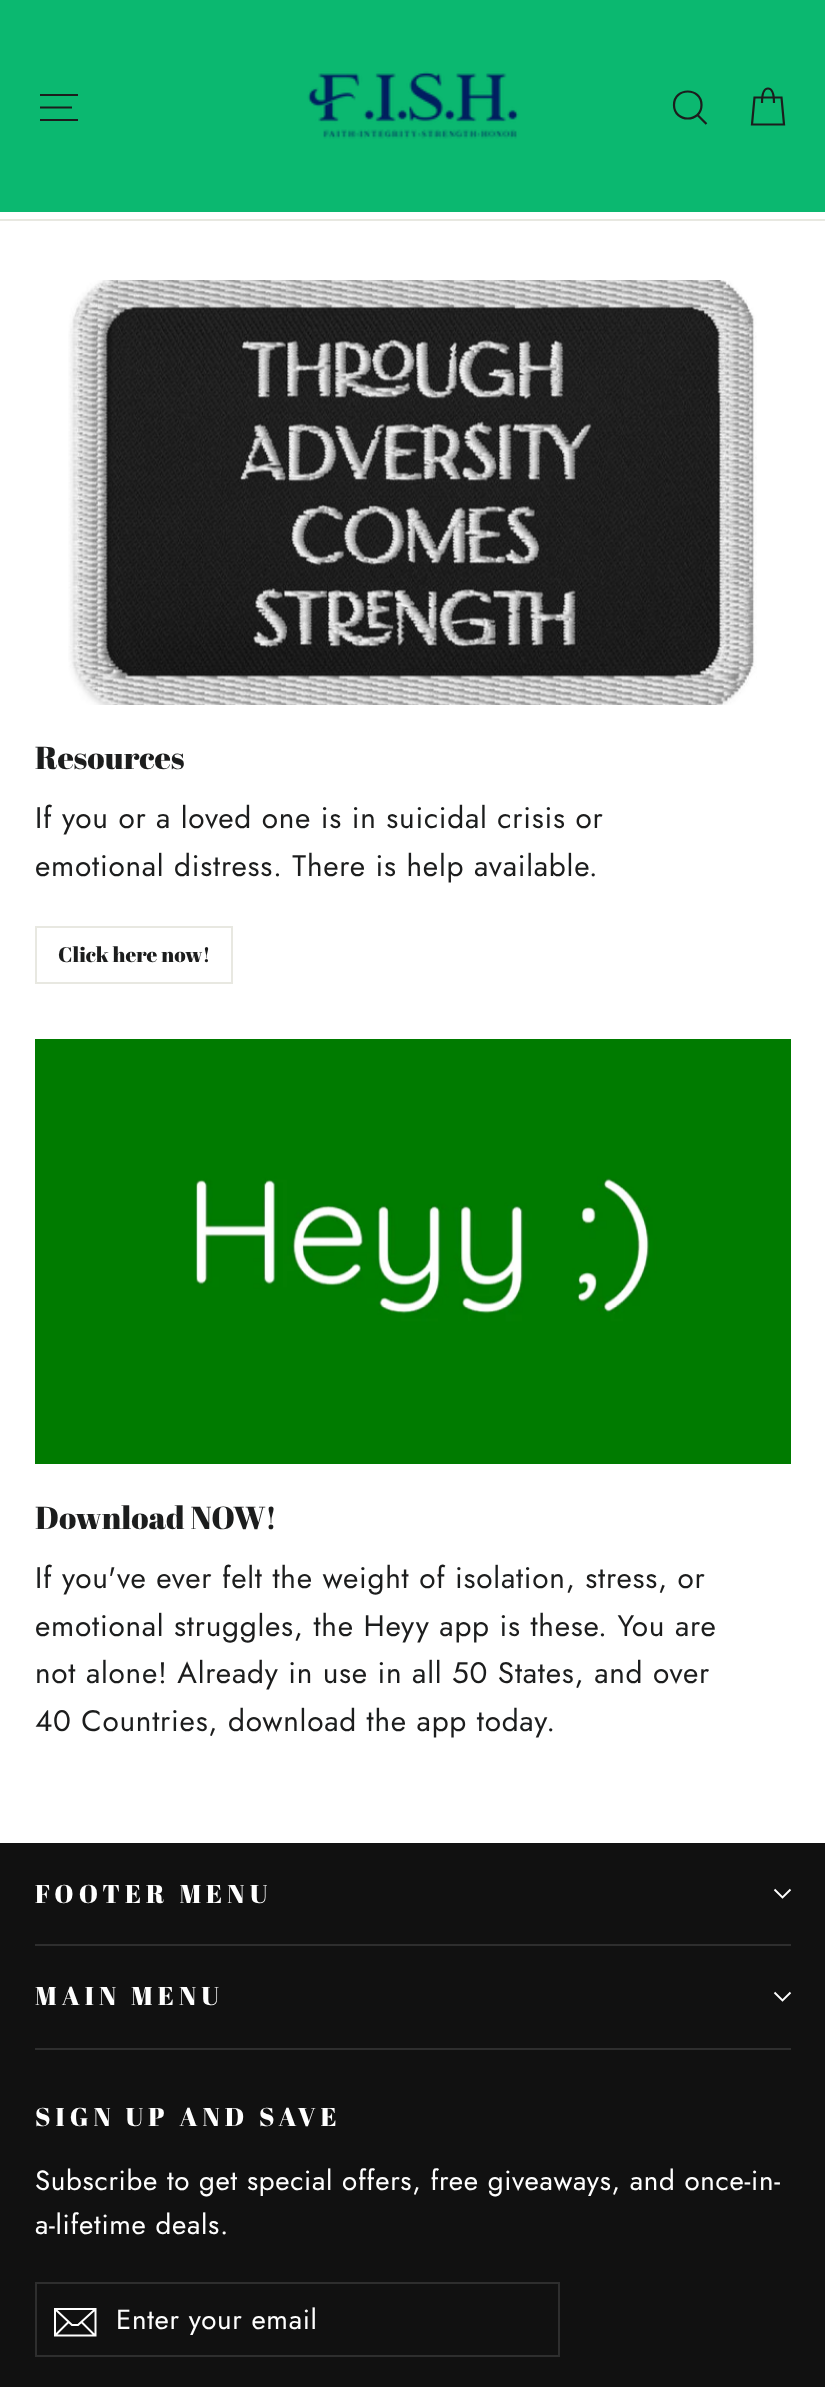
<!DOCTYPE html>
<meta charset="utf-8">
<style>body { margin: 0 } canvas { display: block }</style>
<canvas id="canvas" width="825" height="2387"></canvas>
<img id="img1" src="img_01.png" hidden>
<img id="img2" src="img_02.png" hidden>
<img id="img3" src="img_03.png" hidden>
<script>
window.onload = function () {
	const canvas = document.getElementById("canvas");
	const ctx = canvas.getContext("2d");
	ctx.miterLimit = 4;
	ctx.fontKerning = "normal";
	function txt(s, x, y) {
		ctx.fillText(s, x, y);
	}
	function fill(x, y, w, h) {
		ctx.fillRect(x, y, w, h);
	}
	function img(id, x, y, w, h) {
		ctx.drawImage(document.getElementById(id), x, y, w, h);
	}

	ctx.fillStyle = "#FFFFFF";
	fill(0, 0, 825, 2387);
	ctx.fillStyle = "#0BB870";
	fill(0, 0, 825, 212);
	ctx.beginPath();
	ctx.moveTo(40, 95);
	ctx.lineTo(78, 95);
	ctx.moveTo(40, 107.5);
	ctx.lineTo(72, 107.5);
	ctx.moveTo(40, 120);
	ctx.lineTo(78, 120);
	ctx.strokeStyle = "#1C1D1D";
	ctx.lineWidth = 2.2;
	ctx.stroke();
	img("img1", 307, 71, 212, 68);
	ctx.beginPath();
	ctx.moveTo(701.5, 105);
	ctx.bezierCurveTo(701.5, 123, 674, 123, 674, 105);
	ctx.bezierCurveTo(674, 87, 701.5, 87, 701.5, 105);
	ctx.closePath();
	ctx.moveTo(706.5, 124);
	ctx.lineTo(697.5, 115);
	ctx.stroke();
	ctx.beginPath();
	ctx.moveTo(762, 103);
	ctx.bezierCurveTo(762, 91.5, 765, 88.5, 768, 88.5);
	ctx.bezierCurveTo(771.5, 88.5, 774, 91.5, 774, 103);
	ctx.moveTo(754.5, 97.5);
	ctx.lineTo(781.5, 97.5);
	ctx.lineTo(784, 124.5);
	ctx.lineTo(752, 124.5);
	ctx.closePath();
	ctx.stroke();
	ctx.fillStyle = "#E8E8E1";
	fill(0, 219, 825, 2);
	img("img2", 68, 280, 689, 425);
	ctx.strokeStyle = "#E8E8E1";
	ctx.lineWidth = 2;
	ctx.strokeRect(36, 927, 196, 56);
	img("img3", 35, 1039, 756, 425);
	ctx.fillStyle = "#111111";
	fill(0, 1843, 825, 544);
	ctx.beginPath();
	ctx.moveTo(774.5, 1889.5);
	ctx.lineTo(782.5, 1897.5);
	ctx.lineTo(790.5, 1889.5);
	ctx.strokeStyle = "#FFFFFF";
	ctx.lineWidth = 1.9;
	ctx.stroke();
	ctx.fillStyle = "#2E2E2E";
	fill(35, 1944, 756, 2);
	ctx.beginPath();
	ctx.moveTo(774.5, 1992.5);
	ctx.lineTo(782.5, 2000.5);
	ctx.lineTo(790.5, 1992.5);
	ctx.stroke();
	fill(35, 2048, 756, 2);
	ctx.strokeStyle = "#2E2E2E";
	ctx.lineWidth = 2;
	ctx.strokeRect(36, 2283, 523, 73);
	ctx.beginPath();
	ctx.moveTo(95.5, 2335.5);
	ctx.lineTo(55, 2335.5);
	ctx.lineTo(55, 2309);
	ctx.lineTo(95.5, 2309);
	ctx.closePath();
	ctx.moveTo(55, 2309);
	ctx.lineTo(72, 2325);
	ctx.lineTo(78, 2325);
	ctx.lineTo(95.5, 2309);
	ctx.moveTo(68.5, 2322);
	ctx.lineTo(55.5, 2335);
	ctx.moveTo(95, 2335.5);
	ctx.lineTo(81.5, 2322);
	ctx.strokeStyle = "#FFFFFF";
	ctx.stroke();
	ctx.font = "31.75px Abril Fatface";
	ctx.fillStyle = "#1C1D1D";
	txt("Resources", 35, 769);
	ctx.letterSpacing = "0.75px";
	ctx.font = "29.75px Jost";
	txt("If you or a loved one is in suicidal crisis or", 35, 828);
	txt("emotional distress. There is help available.", 35, 876);
	ctx.letterSpacing = "0px";
	ctx.font = "21px Abril Fatface";
	txt("Click here now!", 58, 962);
	ctx.font = "31.75px Abril Fatface";
	txt("Download NOW!", 35, 1529);
	ctx.letterSpacing = "0.75px";
	ctx.font = "29.75px Jost";
	txt("If you've ever felt the weight of isolation, stress, or", 35, 1588);
	txt("emotional struggles, the Heyy app is these. You are", 35, 1636);
	txt("not alone! Already in use in all 50 States, and over", 35, 1683);
	txt("40 Countries, download the app today.", 35, 1731);
	ctx.letterSpacing = "5.1px";
	ctx.font = "25.75px Abril Fatface";
	ctx.fillStyle = "#FFFFFF";
	txt("FOOTER MENU", 35, 1903);
	txt("MAIN MENU", 35, 2005);
	txt("SIGN UP AND SAVE", 35, 2126);
	ctx.letterSpacing = "0.7px";
	ctx.font = "27.7px Jost";
	txt("Subscribe to get special offers, free giveaways, and once-in-", 35, 2190);
	txt("a-lifetime deals.", 35, 2234);
	txt("Enter your email", 116, 2329);
};
</script>
